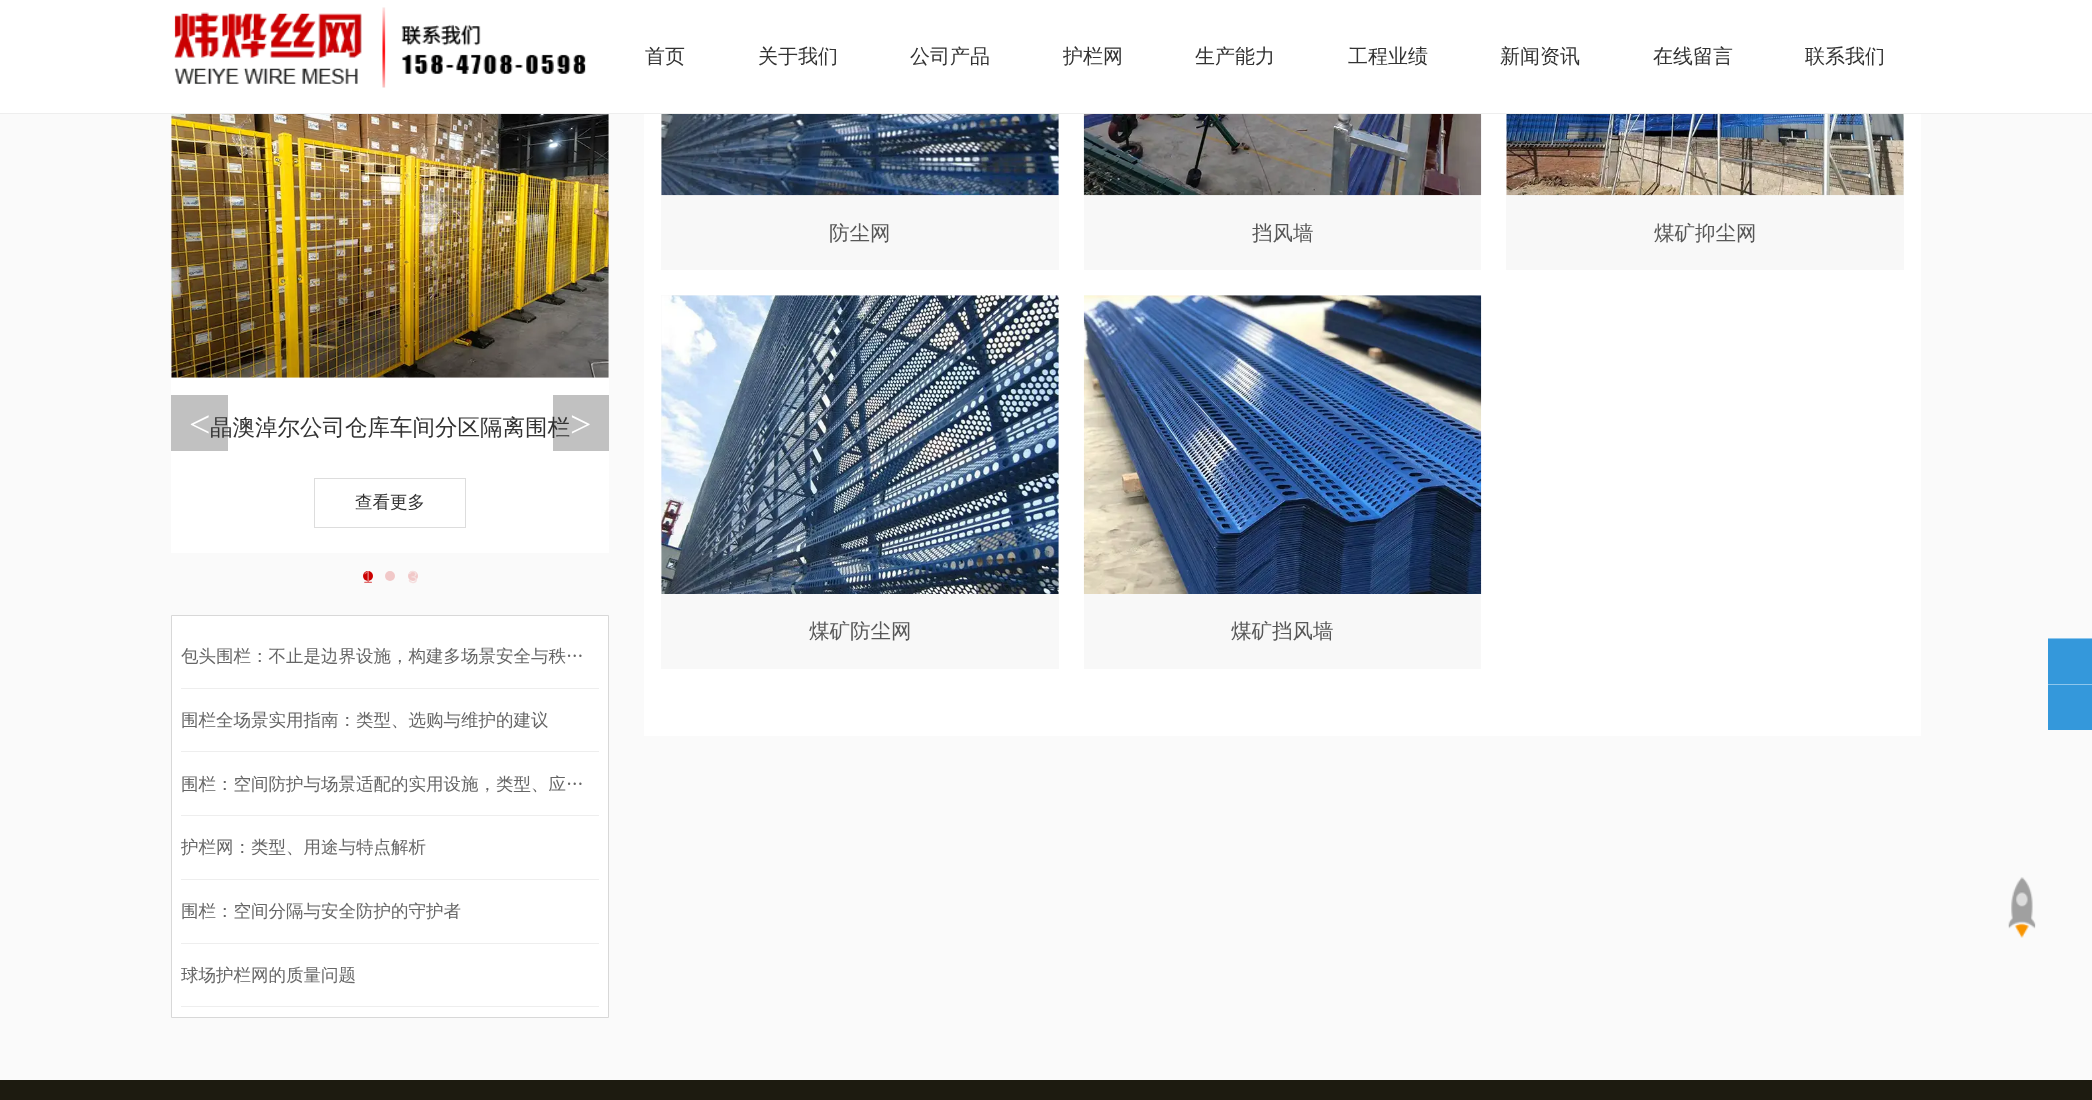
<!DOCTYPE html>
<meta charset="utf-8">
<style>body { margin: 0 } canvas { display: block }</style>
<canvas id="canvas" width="2092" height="1100"></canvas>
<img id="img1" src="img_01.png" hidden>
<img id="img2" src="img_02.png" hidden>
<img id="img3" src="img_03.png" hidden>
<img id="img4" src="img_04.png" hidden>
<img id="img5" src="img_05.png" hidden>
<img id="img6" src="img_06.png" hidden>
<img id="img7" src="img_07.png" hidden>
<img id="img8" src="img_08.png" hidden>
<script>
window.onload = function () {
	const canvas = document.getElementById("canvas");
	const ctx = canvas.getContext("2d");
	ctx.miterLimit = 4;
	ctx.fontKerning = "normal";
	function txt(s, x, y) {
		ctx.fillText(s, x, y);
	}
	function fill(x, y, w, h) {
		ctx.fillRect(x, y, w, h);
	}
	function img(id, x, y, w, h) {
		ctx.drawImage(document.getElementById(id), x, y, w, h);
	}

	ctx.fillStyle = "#FAFAFA";
	fill(0, 0, 2092, 1100);
	ctx.fillStyle = "#FFFFFF";
	fill(0, 0, 2092, 113);
	ctx.fillStyle = "#EEEEEE";
	fill(0, 113, 2092, 1);
	img("img1", 174, 7, 412, 81);
	ctx.fillStyle = "#FFFFFF";
	fill(171, 114, 438, 439);
	img("img2", 171, 114, 438, 264);
	ctx.strokeStyle = "#DDDDDD";
	ctx.strokeRect(314.5, 478.5, 151, 49);
	ctx.fillStyle = "#CC0000";
	ctx.beginPath();
	ctx.arc(368, 576, 5, 0, Math.PI * 2);
	ctx.fill();
	ctx.fillStyle = "#F1C8C8";
	ctx.beginPath();
	ctx.arc(390, 576, 5, 0, Math.PI * 2);
	ctx.fill();
	ctx.beginPath();
	ctx.arc(413, 576, 5, 0, Math.PI * 2);
	ctx.fill();
	ctx.fillStyle = "#FFFFFF";
	ctx.beginPath();
	ctx.rect(171.5, 615.5, 437, 402);
	ctx.fill();
	ctx.strokeStyle = "#D8D8D8";
	ctx.stroke();
	ctx.fillStyle = "#EEEEEE";
	fill(181, 688, 418, 1);
	fill(181, 751, 418, 1);
	fill(181, 815, 418, 1);
	fill(181, 879, 418, 1);
	fill(181, 943, 418, 1);
	fill(181, 1006, 418, 1);
	ctx.fillStyle = "#FFFFFF";
	fill(644, 114, 1277, 622);
	ctx.fillStyle = "#F8F8F8";
	fill(661, 114, 398, 156);
	img("img3", 661, 114, 398, 82);
	fill(1084, 195, 397, 75);
	img("img4", 1083, 114, 399, 82);
	fill(1506, 114, 398, 156);
	img("img5", 1506, 114, 398, 82);
	fill(661, 295, 398, 374);
	img("img6", 661, 295, 398, 299);
	fill(1084, 295, 397, 374);
	img("img7", 1083, 295, 399, 299);
	ctx.fillStyle = "#1D1B10";
	fill(0, 1080, 2092, 20);
	ctx.fillStyle = "#3498DB";
	fill(2048, 639, 44, 45);
	ctx.fillStyle = "#8EC6EC";
	fill(2048, 638, 44, 1);
	ctx.fillStyle = "#3498DB";
	fill(2048, 685, 44, 45);
	ctx.fillStyle = "#8EC6EC";
	fill(2048, 684, 44, 1);
	img("img8", 2008, 877, 28, 61);
	ctx.font = "500 20px WenQuanYi Zen Hei";
	ctx.fillStyle = "#333333";
	txt("首页", 645, 63);
	txt("关于我们", 758, 63);
	txt("公司产品", 910, 63);
	txt("护栏网", 1063, 63);
	txt("生产能力", 1195, 63);
	txt("工程业绩", 1348, 63);
	txt("新闻资讯", 1500, 63);
	txt("在线留言", 1653, 63);
	txt("联系我们", 1805, 63);
	ctx.font = "500 22.5px WenQuanYi Zen Hei";
	txt("晶澳淖尔公司仓库车间分区隔离围栏", 210, 435);
	ctx.fillStyle = "rgba(51, 51, 51, 0.3)";
	fill(171, 395, 57, 56);
	ctx.font = "38px Liberation Serif";
	ctx.fillStyle = "#FFFFFF";
	txt("<", 189, 437);
	ctx.font = "500 17.5px WenQuanYi Zen Hei";
	ctx.fillStyle = "#333333";
	txt("查看更多", 355, 508);
	ctx.fillStyle = "rgba(51, 51, 51, 0.3)";
	fill(553, 395, 56, 56);
	ctx.font = "38px Liberation Serif";
	ctx.fillStyle = "#FFFFFF";
	txt(">", 570, 437);
	ctx.font = "17.5px Liberation Sans";
	ctx.fillStyle = "#E06B6B";
	txt("1", 363, 583);
	ctx.fillStyle = "#F5DFDF";
	txt("3", 408, 583);
	ctx.font = "500 17.5px WenQuanYi Zen Hei";
	ctx.fillStyle = "#666666";
	txt("包头围栏：不止是边界设施，构建多场景安全与秩…", 181, 662);
	txt("围栏全场景实用指南：类型、选购与维护的建议", 181, 726);
	txt("围栏：空间防护与场景适配的实用设施，类型、应…", 181, 790);
	txt("护栏网：类型、用途与特点解析", 181, 853);
	txt("围栏：空间分隔与安全防护的守护者", 181, 917);
	txt("球场护栏网的质量问题", 181, 981);
	ctx.font = "500 20.5px WenQuanYi Zen Hei";
	ctx.fillStyle = "#575757";
	txt("防尘网", 829, 240);
	txt("挡风墙", 1252, 240);
	txt("煤矿抑尘网", 1654, 240);
	txt("煤矿防尘网", 809, 638);
	txt("煤矿挡风墙", 1231, 638);
};
</script>
